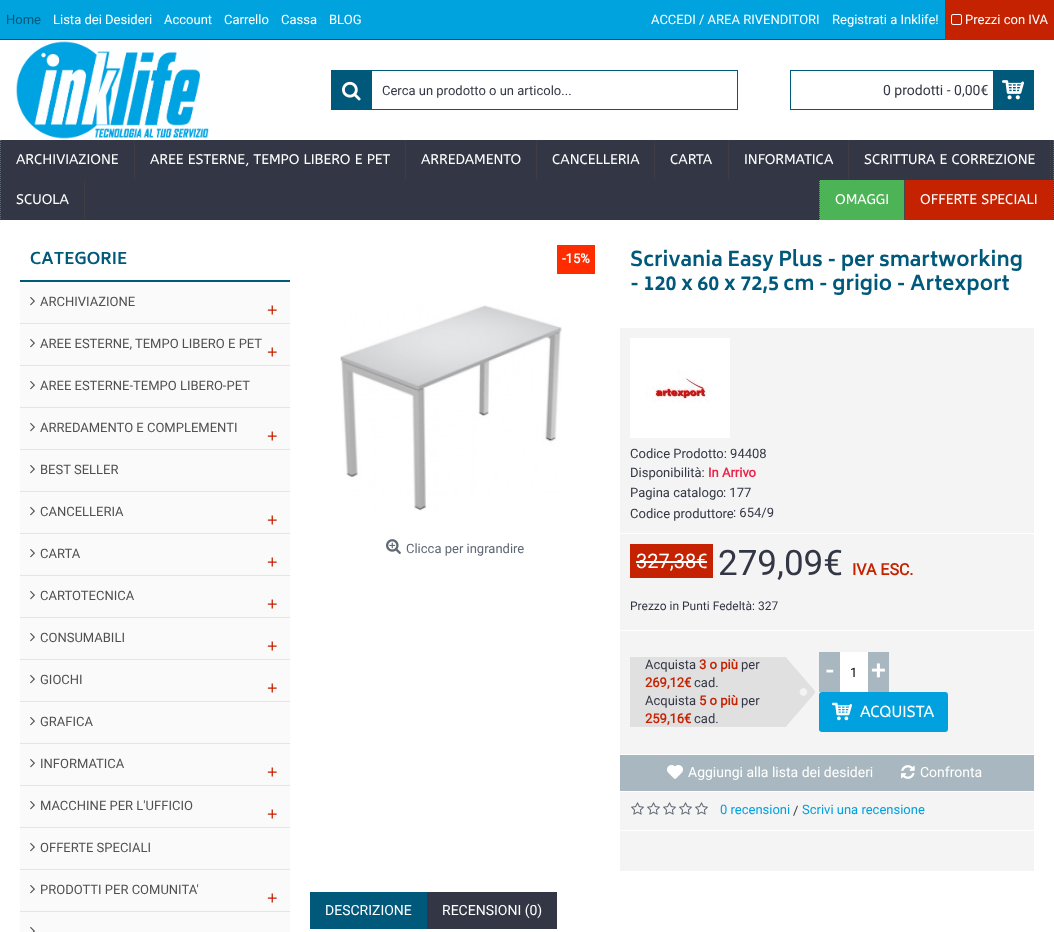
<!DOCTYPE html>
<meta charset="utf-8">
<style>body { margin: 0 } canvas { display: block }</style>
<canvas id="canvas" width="1054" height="932"></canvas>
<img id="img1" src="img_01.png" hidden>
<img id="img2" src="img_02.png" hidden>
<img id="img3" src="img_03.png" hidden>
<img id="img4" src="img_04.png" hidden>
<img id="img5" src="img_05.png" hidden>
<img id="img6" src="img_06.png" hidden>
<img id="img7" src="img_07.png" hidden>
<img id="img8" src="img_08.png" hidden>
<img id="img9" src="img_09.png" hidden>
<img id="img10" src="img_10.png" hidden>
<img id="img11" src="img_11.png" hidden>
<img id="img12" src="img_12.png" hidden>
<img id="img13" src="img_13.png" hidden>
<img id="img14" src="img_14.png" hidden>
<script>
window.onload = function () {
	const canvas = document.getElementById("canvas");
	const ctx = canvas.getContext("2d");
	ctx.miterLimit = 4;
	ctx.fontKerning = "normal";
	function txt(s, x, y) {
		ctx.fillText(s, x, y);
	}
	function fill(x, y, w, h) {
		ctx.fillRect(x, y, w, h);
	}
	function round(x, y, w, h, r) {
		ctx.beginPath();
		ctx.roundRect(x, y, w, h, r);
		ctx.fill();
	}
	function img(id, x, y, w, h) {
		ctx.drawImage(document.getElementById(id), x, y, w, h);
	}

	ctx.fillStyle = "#FFFFFF";
	fill(0, 0, 1054, 932);
	ctx.fillStyle = "#00A3DE";
	fill(0, 0, 945, 39);
	ctx.fillStyle = "#00597B";
	fill(0, 39, 945, 1);
	ctx.fillStyle = "#C42200";
	fill(945, 0, 109, 40);
	img("img1", 951, 14, 11, 11);
	img("img2", 16, 41, 193, 98);
	ctx.strokeStyle = "#00597B";
	ctx.strokeRect(331.5, 70.5, 406, 39);
	ctx.fillStyle = "#00597B";
	fill(331, 70, 41, 40);
	img("img3", 342, 81, 19, 20);
	ctx.strokeRect(790.5, 70.5, 243, 39);
	fill(993, 71, 40, 38);
	img("img4", 1002, 80, 22, 20);
	ctx.fillStyle = "#333745";
	fill(0, 140, 1054, 80);
	ctx.beginPath();
	ctx.moveTo(1053.5, 140);
	ctx.lineTo(1053.5, 220);
	ctx.strokeStyle = "#5F6874";
	ctx.setLineDash([1, 1]);
	ctx.stroke();
	ctx.beginPath();
	ctx.moveTo(0.5, 140);
	ctx.lineTo(0.5, 220);
	ctx.stroke();
	ctx.beginPath();
	ctx.moveTo(134.5, 140);
	ctx.lineTo(134.5, 180);
	ctx.strokeStyle = "#444349";
	ctx.stroke();
	ctx.beginPath();
	ctx.moveTo(405.5, 140);
	ctx.lineTo(405.5, 180);
	ctx.stroke();
	ctx.beginPath();
	ctx.moveTo(536.5, 140);
	ctx.lineTo(536.5, 180);
	ctx.stroke();
	ctx.beginPath();
	ctx.moveTo(654.5, 140);
	ctx.lineTo(654.5, 180);
	ctx.stroke();
	ctx.beginPath();
	ctx.moveTo(728.5, 140);
	ctx.lineTo(728.5, 180);
	ctx.stroke();
	ctx.beginPath();
	ctx.moveTo(848.5, 140);
	ctx.lineTo(848.5, 180);
	ctx.stroke();
	ctx.beginPath();
	ctx.moveTo(1050.5, 140);
	ctx.lineTo(1050.5, 180);
	ctx.stroke();
	ctx.beginPath();
	ctx.moveTo(84.5, 180);
	ctx.lineTo(84.5, 220);
	ctx.stroke();
	ctx.fillStyle = "#4CB356";
	fill(819, 180, 85, 40);
	ctx.beginPath();
	ctx.moveTo(819.5, 180);
	ctx.lineTo(819.5, 220);
	ctx.stroke();
	ctx.fillStyle = "#C42200";
	fill(904, 180, 149, 40);
	ctx.beginPath();
	ctx.moveTo(904.5, 180);
	ctx.lineTo(904.5, 220);
	ctx.stroke();
	ctx.fillStyle = "#FAFAFA";
	fill(20, 282, 270, 650);
	ctx.fillStyle = "#00597B";
	fill(20, 280, 270, 2);
	ctx.fillStyle = "#E4E4E4";
	fill(20, 323, 270, 1);
	img("img5", 30, 297, 5, 9);
	fill(20, 365, 270, 1);
	img("img5", 30, 339, 5, 9);
	fill(20, 407, 270, 1);
	img("img5", 30, 381, 5, 9);
	fill(20, 449, 270, 1);
	img("img5", 30, 423, 5, 9);
	fill(20, 491, 270, 1);
	img("img5", 30, 465, 5, 9);
	fill(20, 533, 270, 1);
	img("img5", 30, 507, 5, 9);
	fill(20, 575, 270, 1);
	img("img5", 30, 549, 5, 9);
	fill(20, 617, 270, 1);
	img("img5", 30, 591, 5, 9);
	fill(20, 659, 270, 1);
	img("img5", 30, 633, 5, 9);
	fill(20, 701, 270, 1);
	img("img5", 30, 675, 5, 9);
	fill(20, 743, 270, 1);
	img("img5", 30, 717, 5, 9);
	fill(20, 785, 270, 1);
	img("img5", 30, 759, 5, 9);
	fill(20, 827, 270, 1);
	img("img5", 30, 801, 5, 9);
	fill(20, 869, 270, 1);
	img("img5", 30, 843, 5, 9);
	fill(20, 911, 270, 1);
	img("img5", 30, 885, 5, 9);
	img("img6", 30, 927, 5, 5);
	ctx.fillStyle = "#FF2C00";
	fill(557, 245, 38, 29);
	img("img7", 340, 305, 222, 206);
	img("img8", 386, 539, 15, 15);
	ctx.fillStyle = "#F4F4F4";
	fill(620, 328, 414, 205);
	img("img9", 630, 338, 100, 100);
	fill(620, 534, 414, 96);
	ctx.fillStyle = "#C42200";
	fill(630, 544, 83, 34);
	ctx.fillStyle = "#FFFFFF";
	fill(636, 561, 71, 2);
	ctx.fillStyle = "#F4F4F4";
	fill(620, 631, 414, 123);
	img("img10", 630, 657, 185, 70);
	ctx.fillStyle = "#A9B8C0";
	fill(819, 652, 21, 40);
	ctx.fillStyle = "#FFFFFF";
	fill(840, 652, 28, 40);
	ctx.fillStyle = "#A9B8C0";
	fill(868, 652, 21, 40);
	ctx.fillStyle = "#00A1DE";
	round(819, 692, 129, 40, 3);
	img("img11", 832, 702, 20, 19);
	ctx.fillStyle = "#A9B8C0";
	fill(620, 755, 414, 36);
	img("img12", 667, 765, 16, 14);
	img("img13", 901, 765, 14, 14);
	ctx.fillStyle = "#F4F4F4";
	fill(620, 792, 414, 38);
	img("img14", 631, 802, 13, 13);
	img("img14", 647, 802, 13, 13);
	img("img14", 663, 802, 13, 13);
	img("img14", 679, 802, 13, 13);
	img("img14", 695, 802, 13, 13);
	fill(620, 831, 414, 40);
	ctx.fillStyle = "#00597B";
	fill(310, 892, 117, 37);
	ctx.fillStyle = "#333745";
	fill(427, 892, 130, 37);
	ctx.font = "13px Roboto";
	ctx.fillStyle = "#00597B";
	txt("Home", 6, 24);
	ctx.fillStyle = "#FFFFFF";
	txt("Lista dei Desideri", 53, 24);
	txt("Account", 164, 24);
	txt("Carrello", 224, 24);
	txt("Cassa", 281, 24);
	txt("BLOG", 329, 24);
	txt("ACCEDI / AREA RIVENDITORI", 651, 24);
	txt("Registrati a Inklife!", 832, 24);
	txt("Prezzi con IVA", 965, 24);
	ctx.fillStyle = "#333745";
	txt("Cerca un prodotto o un articolo...", 382, 95);
	ctx.font = "14px Roboto";
	txt("0 prodotti - 0,00€", 883, 95);
	ctx.font = "14px ABeeZee";
	ctx.fillStyle = "#FFFFFF";
	txt("ARCHIVIAZIONE", 16, 164);
	txt("AREE ESTERNE, TEMPO LIBERO E PET", 150, 164);
	txt("ARREDAMENTO", 421, 164);
	txt("CANCELLERIA", 552, 164);
	txt("CARTA", 670, 164);
	txt("INFORMATICA", 744, 164);
	txt("SCRITTURA E CORREZIONE", 864, 164);
	txt("SCUOLA", 16, 204);
	txt("OMAGGI", 835, 204);
	txt("OFFERTE SPECIALI", 920, 204);
	ctx.font = "bold 16px Biryani";
	ctx.fillStyle = "#00597B";
	txt("CATEGORIE", 30, 264);
	ctx.font = "13px Roboto";
	ctx.fillStyle = "#505050";
	txt("ARCHIVIAZIONE", 40, 306);
	ctx.font = "18px Liberation Sans";
	ctx.fillStyle = "#C42200";
	txt("+", 267, 316);
	ctx.font = "13px Roboto";
	ctx.fillStyle = "#505050";
	txt("AREE ESTERNE, TEMPO LIBERO E PET", 40, 348);
	ctx.font = "18px Liberation Sans";
	ctx.fillStyle = "#C42200";
	txt("+", 267, 358);
	ctx.font = "13px Roboto";
	ctx.fillStyle = "#505050";
	txt("AREE ESTERNE-TEMPO LIBERO-PET", 40, 390);
	txt("ARREDAMENTO E COMPLEMENTI", 40, 432);
	ctx.font = "18px Liberation Sans";
	ctx.fillStyle = "#C42200";
	txt("+", 267, 442);
	ctx.font = "13px Roboto";
	ctx.fillStyle = "#505050";
	txt("BEST SELLER", 40, 474);
	txt("CANCELLERIA", 40, 516);
	ctx.font = "18px Liberation Sans";
	ctx.fillStyle = "#C42200";
	txt("+", 267, 526);
	ctx.font = "13px Roboto";
	ctx.fillStyle = "#505050";
	txt("CARTA", 40, 558);
	ctx.font = "18px Liberation Sans";
	ctx.fillStyle = "#C42200";
	txt("+", 267, 568);
	ctx.font = "13px Roboto";
	ctx.fillStyle = "#505050";
	txt("CARTOTECNICA", 40, 600);
	ctx.font = "18px Liberation Sans";
	ctx.fillStyle = "#C42200";
	txt("+", 267, 610);
	ctx.font = "13px Roboto";
	ctx.fillStyle = "#505050";
	txt("CONSUMABILI", 40, 642);
	ctx.font = "18px Liberation Sans";
	ctx.fillStyle = "#C42200";
	txt("+", 267, 652);
	ctx.font = "13px Roboto";
	ctx.fillStyle = "#505050";
	txt("GIOCHI", 40, 684);
	ctx.font = "18px Liberation Sans";
	ctx.fillStyle = "#C42200";
	txt("+", 267, 694);
	ctx.font = "13px Roboto";
	ctx.fillStyle = "#505050";
	txt("GRAFICA", 40, 726);
	txt("INFORMATICA", 40, 768);
	ctx.font = "18px Liberation Sans";
	ctx.fillStyle = "#C42200";
	txt("+", 267, 778);
	ctx.font = "13px Roboto";
	ctx.fillStyle = "#505050";
	txt("MACCHINE PER L'UFFICIO", 40, 810);
	ctx.font = "18px Liberation Sans";
	ctx.fillStyle = "#C42200";
	txt("+", 267, 820);
	ctx.font = "13px Roboto";
	ctx.fillStyle = "#505050";
	txt("OFFERTE SPECIALI", 40, 852);
	txt("PRODOTTI PER COMUNITA'", 40, 894);
	ctx.font = "18px Liberation Sans";
	ctx.fillStyle = "#C42200";
	txt("+", 267, 904);
	ctx.font = "bold 13px Roboto";
	ctx.fillStyle = "#FFFFFF";
	txt("-15%", 562, 263);
	ctx.font = "13px Roboto";
	ctx.fillStyle = "#5F6874";
	txt("Clicca per ingrandire", 406, 553);
	ctx.font = "bold 20px Biryani";
	ctx.fillStyle = "#00597B";
	txt("Scrivania Easy Plus - per smartworking", 630, 266);
	txt("- 120 x 60 x 72,5 cm - grigio - Artexport", 630, 290);
	ctx.font = "13px Roboto";
	ctx.fillStyle = "#333745";
	txt("Codice Prodotto: 94408", 630, 458);
	txt("Disponibilità:", 630, 477);
	ctx.font = "bold 13px Roboto";
	ctx.fillStyle = "#EA2349";
	txt("In Arrivo", 708, 477);
	ctx.font = "13px Roboto";
	ctx.fillStyle = "#333745";
	txt("Pagina catalogo", 630, 497);
	txt(": 177", 723, 497);
	txt("Codice produttore", 630, 518);
	txt(": 654/9", 733, 517);
	ctx.font = "20px Roboto";
	ctx.fillStyle = "#FFFFFF";
	txt("327,38€", 636, 568);
	ctx.font = "35px Roboto";
	ctx.fillStyle = "#333745";
	txt("279,09€", 718, 575);
	ctx.font = "bold 16px Roboto";
	ctx.fillStyle = "#C42200";
	txt("IVA ESC.", 852, 575);
	ctx.font = "12px Roboto";
	ctx.fillStyle = "#333745";
	txt("Prezzo in Punti Fedeltà: 327", 630, 610);
	ctx.font = "13px Roboto";
	txt("Acquista", 645, 669);
	ctx.font = "bold 13px Roboto";
	ctx.fillStyle = "#C42200";
	txt("3 o più", 699, 669);
	ctx.font = "13px Roboto";
	ctx.fillStyle = "#333745";
	txt("per", 741, 669);
	ctx.font = "bold 13px Roboto";
	ctx.fillStyle = "#C42200";
	txt("269,12€", 645, 687);
	ctx.font = "13px Roboto";
	ctx.fillStyle = "#333745";
	txt("cad.", 694, 687);
	txt("Acquista", 645, 705);
	ctx.font = "bold 13px Roboto";
	ctx.fillStyle = "#C42200";
	txt("5 o più", 699, 705);
	ctx.font = "13px Roboto";
	ctx.fillStyle = "#333745";
	txt("per", 741, 705);
	ctx.font = "bold 13px Roboto";
	ctx.fillStyle = "#C42200";
	txt("259,16€", 645, 723);
	ctx.font = "13px Roboto";
	ctx.fillStyle = "#333745";
	txt("cad.", 694, 723);
	ctx.font = "bold 25px Roboto";
	ctx.fillStyle = "#FFFFFF";
	txt("-", 826, 679);
	ctx.font = "13px Roboto";
	ctx.fillStyle = "#000000";
	txt("1", 850, 677);
	ctx.font = "bold 25px Roboto";
	ctx.fillStyle = "#FFFFFF";
	txt("+", 871, 679);
	ctx.font = "16px ABeeZee";
	txt("ACQUISTA", 860, 717);
	ctx.font = "14px Roboto";
	txt("Aggiungi alla lista dei desideri", 688, 777);
	txt("Confronta", 920, 777);
	ctx.font = "13px Roboto";
	ctx.fillStyle = "#00A1DE";
	txt("0 recensioni", 720, 814);
	ctx.fillStyle = "#333745";
	txt("/", 793, 815);
	ctx.fillStyle = "#00A1DE";
	txt("Scrivi una recensione", 802, 814);
	ctx.font = "14px Roboto";
	ctx.fillStyle = "#FFFFFF";
	txt("DESCRIZIONE", 325, 915);
	txt("RECENSIONI (0)", 442, 915);
};
</script>
